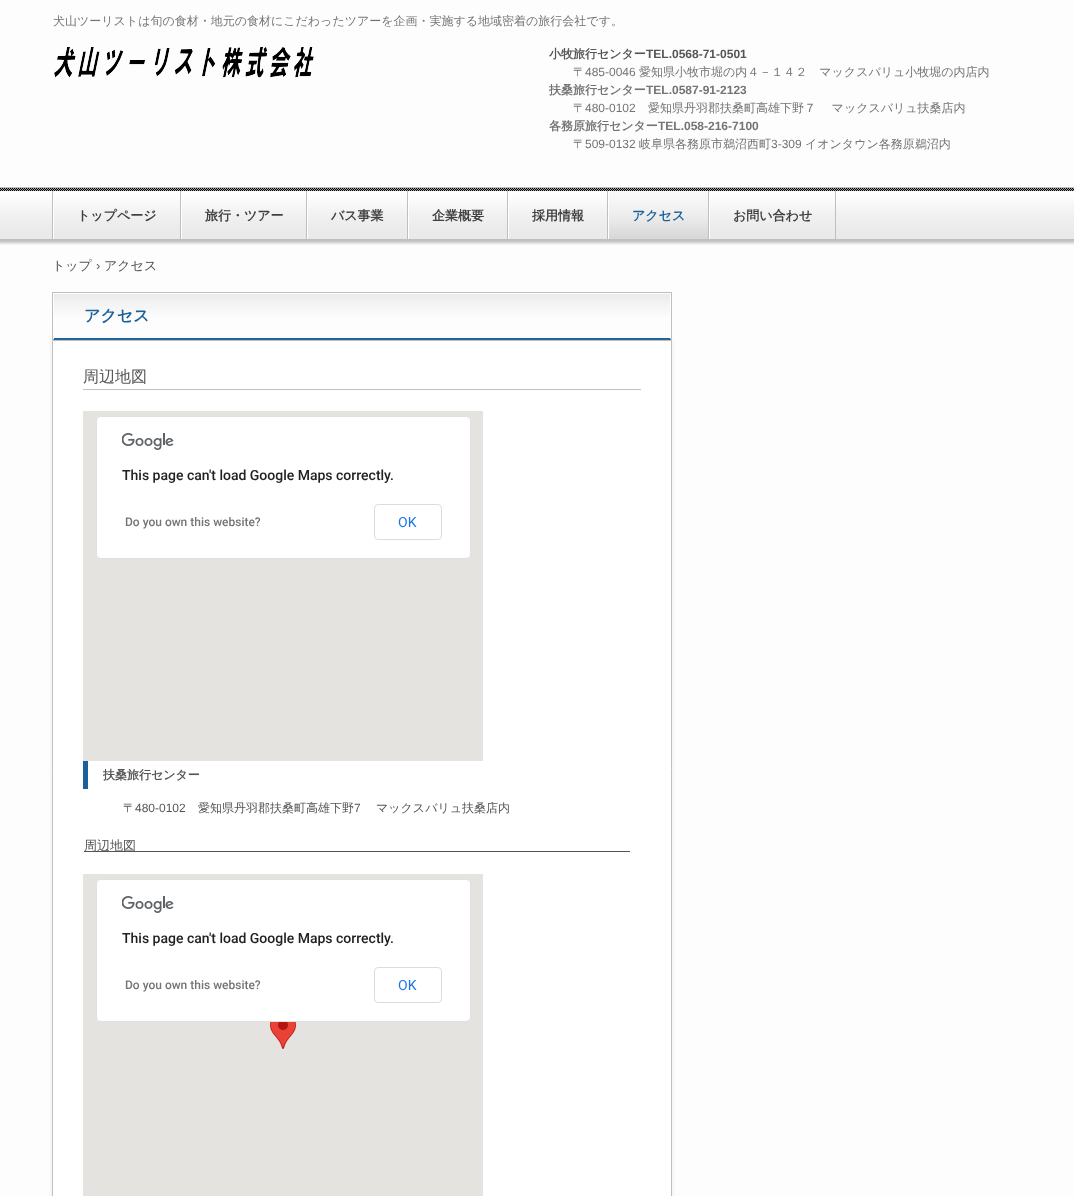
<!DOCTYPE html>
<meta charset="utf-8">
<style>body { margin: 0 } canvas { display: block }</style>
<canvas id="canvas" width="1074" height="1196"></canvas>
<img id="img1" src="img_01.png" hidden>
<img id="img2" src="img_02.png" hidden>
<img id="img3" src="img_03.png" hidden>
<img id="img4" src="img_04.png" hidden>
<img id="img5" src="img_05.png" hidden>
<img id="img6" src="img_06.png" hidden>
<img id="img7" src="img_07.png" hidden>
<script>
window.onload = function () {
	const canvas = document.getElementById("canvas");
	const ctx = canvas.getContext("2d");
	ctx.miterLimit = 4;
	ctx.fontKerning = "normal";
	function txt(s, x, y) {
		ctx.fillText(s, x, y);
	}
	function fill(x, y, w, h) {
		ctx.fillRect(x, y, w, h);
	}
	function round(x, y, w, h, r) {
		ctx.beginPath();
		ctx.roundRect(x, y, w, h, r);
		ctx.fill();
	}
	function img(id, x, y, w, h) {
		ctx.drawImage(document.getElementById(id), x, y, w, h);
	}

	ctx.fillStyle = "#FDFDFD";
	fill(0, 0, 1074, 1196);
	img("img1", 54, 47, 260, 31);
	ctx.fillStyle = "#BFBFBF";
	ctx.filter = "blur(1.5px)";
	ctx.beginPath();
	ctx.rect(-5, 190, 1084, 53);
	ctx.fill();
	ctx.filter = "none";
	img("img2", 0, 191, 1074, 48);
	fill(0, 187, 1074, 1);
	img("img3", 0, 188, 1074, 3);
	fill(52, 191, 1, 48);
	fill(180, 191, 1, 48);
	ctx.fillStyle = "#FFFFFF";
	fill(53, 191, 1, 48);
	ctx.fillStyle = "#BFBFBF";
	fill(306, 191, 1, 48);
	ctx.fillStyle = "#FFFFFF";
	fill(181, 191, 1, 48);
	ctx.fillStyle = "#BFBFBF";
	fill(407, 191, 1, 48);
	ctx.fillStyle = "#FFFFFF";
	fill(307, 191, 1, 48);
	ctx.fillStyle = "#BFBFBF";
	fill(507, 191, 1, 48);
	ctx.fillStyle = "#FFFFFF";
	fill(408, 191, 1, 48);
	ctx.fillStyle = "#BFBFBF";
	fill(607, 191, 1, 48);
	ctx.fillStyle = "#FFFFFF";
	fill(508, 191, 1, 48);
	img("img4", 609, 191, 99, 48);
	ctx.fillStyle = "#BFBFBF";
	fill(708, 191, 1, 48);
	ctx.fillStyle = "#FFFFFF";
	fill(608, 191, 1, 48);
	ctx.fillStyle = "#BFBFBF";
	fill(835, 191, 1, 48);
	ctx.fillStyle = "#FFFFFF";
	fill(709, 191, 1, 48);
	ctx.fillStyle = "#BFBFBF";
	fill(52, 292, 620, 1);
	fill(671, 292, 1, 48);
	fill(52, 292, 1, 48);
	img("img5", 54, 294, 616, 22);
	ctx.fillStyle = "#19619A";
	ctx.beginPath();
	ctx.moveTo(671, 340);
	ctx.lineTo(53, 340);
	ctx.lineTo(54, 338);
	ctx.lineTo(670, 338);
	ctx.closePath();
	ctx.fill();
	ctx.fillStyle = "#FFFFFF";
	ctx.beginPath();
	ctx.moveTo(53, 340);
	ctx.lineTo(53, 293);
	ctx.lineTo(54, 294);
	ctx.lineTo(54, 338);
	ctx.closePath();
	ctx.fill();
	ctx.fillStyle = "rgba(162, 162, 162, 0.2)";
	ctx.filter = "blur(2.5px)";
	ctx.beginPath();
	ctx.rect(52, 340, 620, 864);
	ctx.fill();
	ctx.filter = "none";
	ctx.fillStyle = "#FFFFFF";
	ctx.beginPath();
	ctx.rect(52.5, 340.5, 619, 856);
	ctx.fill();
	ctx.strokeStyle = "#BFBFBF";
	ctx.stroke();
	ctx.fillStyle = "#BFBFBF";
	fill(83, 389, 558, 1);
	ctx.fillStyle = "#E5E3DF";
	fill(83, 411, 400, 350);
	ctx.fillStyle = "#FFFFFF";
	round(96, 416, 375, 143, 5);
	ctx.beginPath();
	ctx.roundRect(96.5, 416.5, 374, 142, 4.5);
	ctx.strokeStyle = "rgba(0, 0, 0, 0.12)";
	ctx.stroke();
	img("img6", 122, 433, 52, 17);
	ctx.beginPath();
	ctx.roundRect(374.5, 504.5, 67, 35, 3.5);
	ctx.strokeStyle = "#DADCE0";
	ctx.stroke();
	ctx.fillStyle = "#19619A";
	fill(83, 761, 5, 28);
	ctx.fillStyle = "#555555";
	fill(84, 851, 546, 1);
	ctx.fillStyle = "#E5E3DF";
	fill(83, 874, 400, 322);
	img("img7", 270, 1022, 26, 27);
	ctx.fillStyle = "#FFFFFF";
	round(96, 879, 375, 143, 5);
	ctx.beginPath();
	ctx.roundRect(96.5, 879.5, 374, 142, 4.5);
	ctx.strokeStyle = "rgba(0, 0, 0, 0.12)";
	ctx.stroke();
	img("img6", 122, 896, 52, 17);
	ctx.beginPath();
	ctx.roundRect(374.5, 967.5, 67, 35, 3.5);
	ctx.strokeStyle = "#DADCE0";
	ctx.stroke();
	ctx.font = "500 12px WenQuanYi Zen Hei";
	ctx.fillStyle = "#747474";
	txt("犬山ツーリストは旬の食材・地元の食材にこだわったツアーを企画・実施する地域密着の旅行会社です。", 53, 25);
	ctx.font = "bold 12px WenQuanYi Zen Hei";
	ctx.fillStyle = "#555555";
	txt("小牧旅行センター", 549, 58);
	ctx.font = "bold 12px Liberation Sans";
	txt("TEL.0568-71-0501", 646, 58);
	ctx.font = "500 12px WenQuanYi Zen Hei";
	ctx.fillStyle = "#747474";
	txt("〒", 573, 76);
	ctx.font = "12px Liberation Sans";
	txt("485-0046", 585, 76);
	ctx.font = "500 12px WenQuanYi Zen Hei";
	txt("愛知県小牧市堀の内４－１４２　マックスバリュ小牧堀の内店内", 639, 76);
	ctx.font = "bold 12px WenQuanYi Zen Hei";
	txt("扶桑旅行センター", 549, 94);
	ctx.font = "bold 12px Liberation Sans";
	txt("TEL.0587-91-2123", 646, 94);
	ctx.font = "500 12px WenQuanYi Zen Hei";
	txt("〒", 573, 112);
	ctx.font = "12px Liberation Sans";
	txt("480-0102", 585, 112);
	ctx.font = "500 12px WenQuanYi Zen Hei";
	txt("愛知県丹羽郡扶桑町高雄下野７ 　マックスバリュ扶桑店内", 648, 112);
	ctx.font = "bold 12px WenQuanYi Zen Hei";
	txt("各務原旅行センター", 549, 130);
	ctx.font = "bold 12px Liberation Sans";
	txt("TEL.058-216-7100", 658, 130);
	ctx.font = "500 12px WenQuanYi Zen Hei";
	txt("〒", 573, 148);
	ctx.font = "12px Liberation Sans";
	txt("509-0132", 585, 148);
	ctx.font = "500 12px WenQuanYi Zen Hei";
	txt("岐阜県各務原市鵜沼西町", 639, 148);
	ctx.font = "12px Liberation Sans";
	txt("3-309", 771, 148);
	ctx.font = "500 12px WenQuanYi Zen Hei";
	txt("イオンタウン各務原鵜沼内", 805, 148);
	ctx.font = "bold 13px WenQuanYi Zen Hei";
	ctx.fillStyle = "#404040";
	txt("トップページ", 77, 220);
	txt("旅行・ツアー", 205, 220);
	txt("バス事業", 331, 220);
	txt("企業概要", 432, 220);
	txt("採用情報", 532, 220);
	ctx.fillStyle = "#19619A";
	txt("アクセス", 632, 220);
	ctx.fillStyle = "#404040";
	txt("お問い合わせ", 733, 220);
	ctx.font = "500 13px WenQuanYi Zen Hei";
	ctx.fillStyle = "#555555";
	txt("トップ", 52, 270);
	ctx.font = "13px Liberation Sans";
	txt("›", 96, 270);
	ctx.font = "500 13px WenQuanYi Zen Hei";
	txt("アクセス", 104, 270);
	ctx.font = "bold 16px WenQuanYi Zen Hei";
	ctx.fillStyle = "#19619A";
	txt("アクセス", 84, 321);
	ctx.font = "500 16px WenQuanYi Zen Hei";
	ctx.fillStyle = "#555555";
	txt("周辺地図", 83, 382);
	ctx.font = "500 14px Roboto";
	ctx.fillStyle = "#212121";
	txt("This page can't load Google Maps correctly.", 122, 480);
	ctx.font = "500 12px Roboto";
	ctx.fillStyle = "#747474";
	txt("Do you own this website?", 125, 526);
	ctx.font = "14px Roboto";
	ctx.fillStyle = "#1A73E8";
	txt("OK", 398, 527);
	ctx.font = "bold 12px WenQuanYi Zen Hei";
	ctx.fillStyle = "#555555";
	txt("扶桑旅行センター", 103, 779);
	ctx.font = "500 12px WenQuanYi Zen Hei";
	txt("〒", 123, 812);
	ctx.font = "12px Liberation Sans";
	txt("480-0102", 135, 812);
	ctx.font = "500 12px WenQuanYi Zen Hei";
	txt("愛知県丹羽郡扶桑町高雄下野", 198, 812);
	ctx.font = "12px Liberation Sans";
	txt("7", 354, 812);
	ctx.font = "500 12px WenQuanYi Zen Hei";
	txt("マックスバリュ扶桑店内", 376, 812);
	ctx.font = "500 13px WenQuanYi Zen Hei";
	txt("周辺地図", 84, 850);
	ctx.font = "500 14px Roboto";
	ctx.fillStyle = "#212121";
	txt("This page can't load Google Maps correctly.", 122, 943);
	ctx.font = "500 12px Roboto";
	ctx.fillStyle = "#747474";
	txt("Do you own this website?", 125, 989);
	ctx.font = "14px Roboto";
	ctx.fillStyle = "#1A73E8";
	txt("OK", 398, 990);
};
</script>
